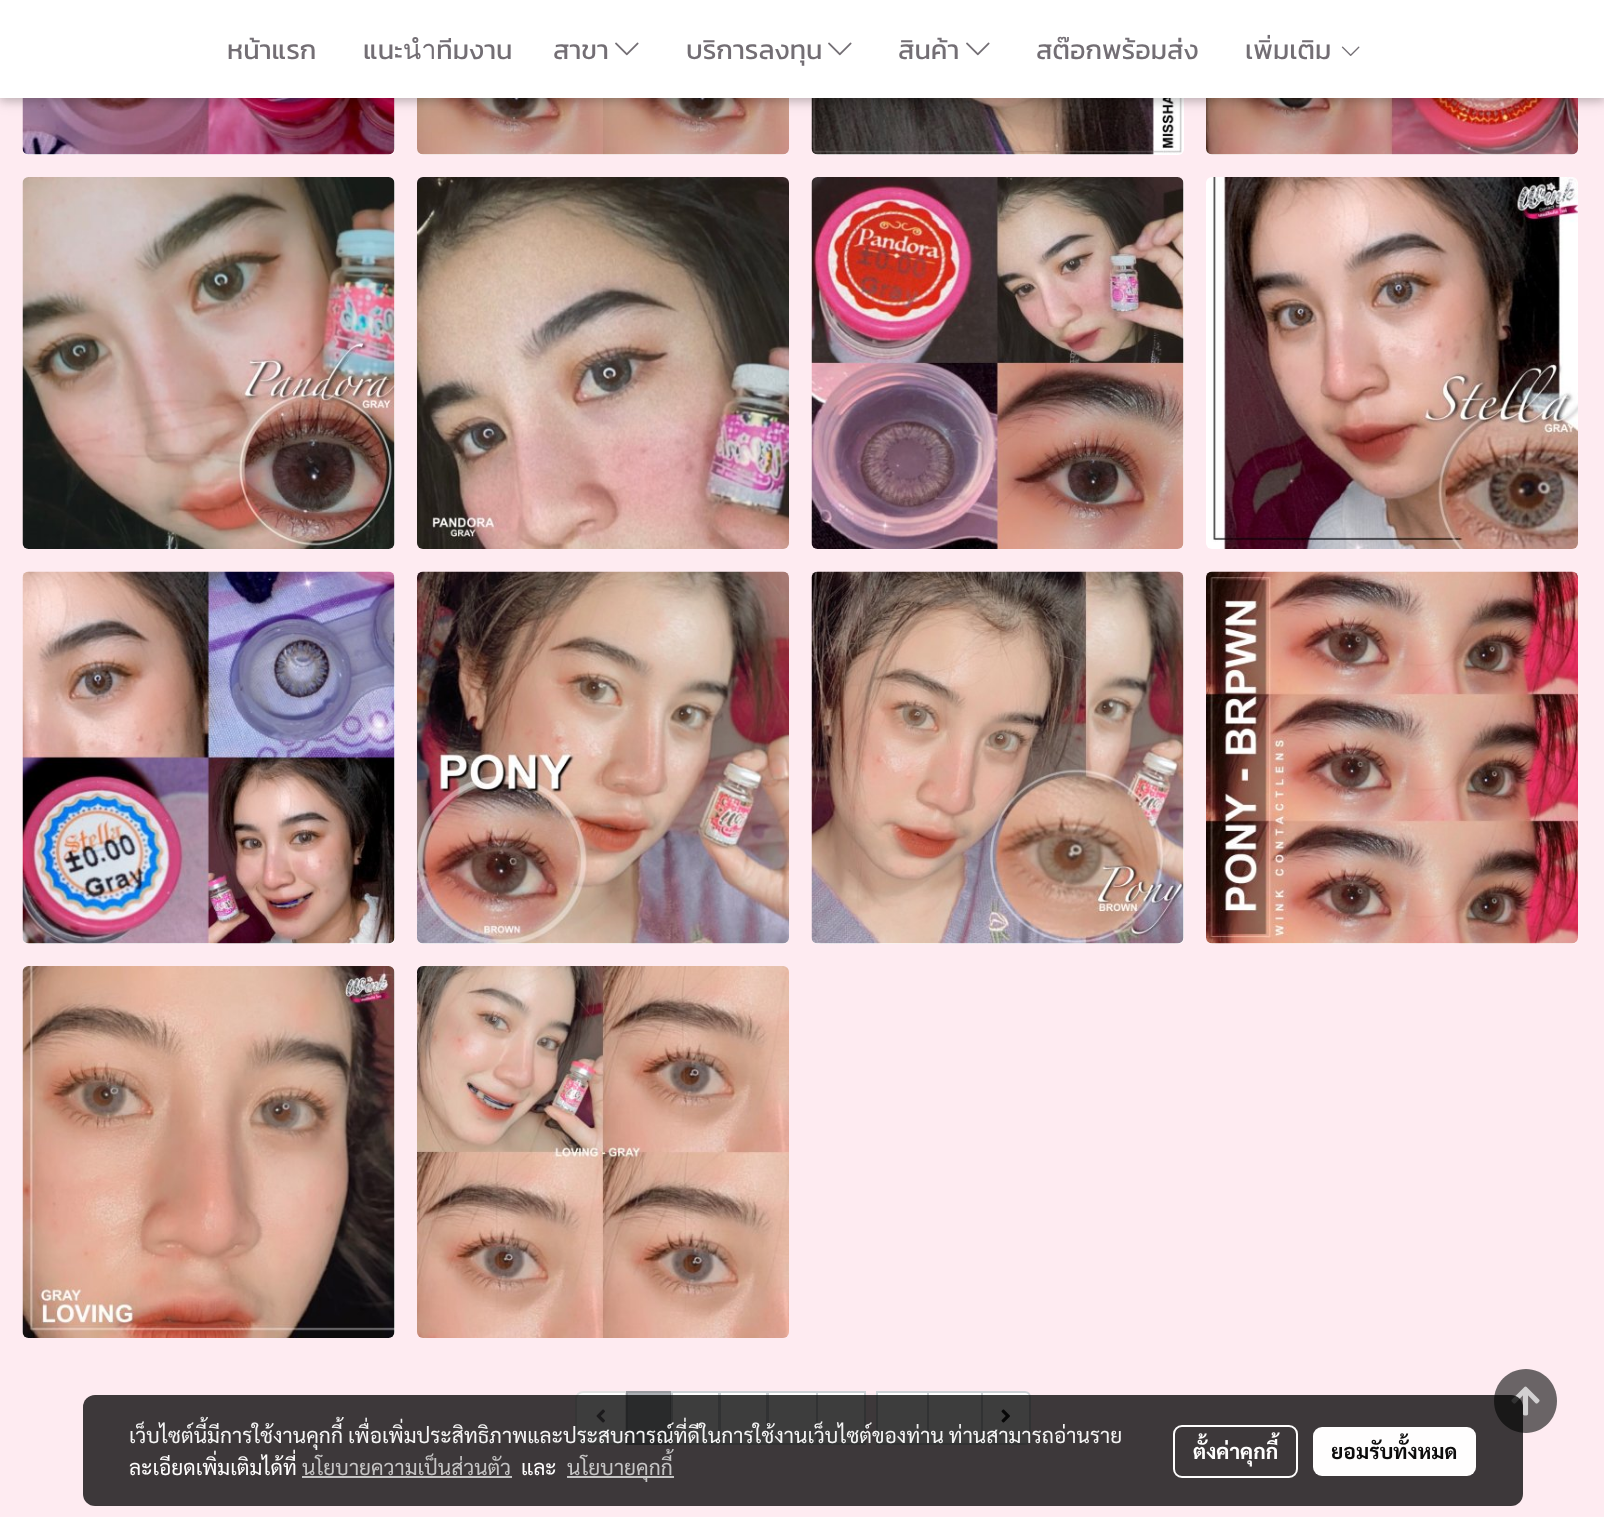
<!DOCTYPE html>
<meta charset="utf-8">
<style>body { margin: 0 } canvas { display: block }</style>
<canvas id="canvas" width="1604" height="1517"></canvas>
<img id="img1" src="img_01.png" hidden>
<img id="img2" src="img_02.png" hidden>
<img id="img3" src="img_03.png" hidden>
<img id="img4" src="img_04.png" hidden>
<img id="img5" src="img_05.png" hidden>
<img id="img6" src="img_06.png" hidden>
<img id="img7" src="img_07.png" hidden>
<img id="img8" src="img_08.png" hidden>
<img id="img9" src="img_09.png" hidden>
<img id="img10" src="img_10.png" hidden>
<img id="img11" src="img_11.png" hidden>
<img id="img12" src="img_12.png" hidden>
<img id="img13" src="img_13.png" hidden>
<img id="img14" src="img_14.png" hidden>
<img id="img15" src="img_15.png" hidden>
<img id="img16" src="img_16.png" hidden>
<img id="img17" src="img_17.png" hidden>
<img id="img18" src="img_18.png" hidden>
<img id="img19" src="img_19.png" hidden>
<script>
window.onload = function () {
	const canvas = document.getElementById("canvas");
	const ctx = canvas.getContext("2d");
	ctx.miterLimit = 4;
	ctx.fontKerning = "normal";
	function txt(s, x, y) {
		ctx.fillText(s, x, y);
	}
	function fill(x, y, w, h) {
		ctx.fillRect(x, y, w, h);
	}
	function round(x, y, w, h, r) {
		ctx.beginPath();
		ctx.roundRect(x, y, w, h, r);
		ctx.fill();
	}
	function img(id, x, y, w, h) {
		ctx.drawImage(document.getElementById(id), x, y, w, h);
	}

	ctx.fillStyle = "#FEEBF1";
	fill(0, 0, 1604, 1517);
	ctx.fillStyle = "#FFFFFF";
	round(23, -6, 372, 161, 6);
	img("img1", 22, 98, 373, 57);
	round(417, -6, 372, 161, 6);
	img("img2", 417, 98, 372, 57);
	round(812, -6, 372, 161, 6);
	img("img3", 811, 98, 371, 57);
	round(1206, -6, 372, 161, 6);
	img("img4", 1206, 98, 372, 57);
	round(23, 177, 372, 372, 6);
	img("img5", 22, 177, 373, 372);
	img("img6", 417, 177, 372, 372);
	round(812, 177, 372, 372, 6);
	img("img7", 811, 177, 373, 372);
	img("img8", 1206, 177, 372, 372);
	round(23, 572, 372, 372, 6);
	img("img9", 22, 571, 373, 373);
	round(417, 572, 372, 372, 6);
	img("img10", 417, 571, 372, 373);
	round(812, 572, 372, 372, 6);
	img("img11", 811, 571, 373, 373);
	round(1206, 572, 372, 372, 6);
	img("img12", 1206, 571, 372, 373);
	round(23, 966, 372, 372, 6);
	img("img13", 22, 966, 373, 372);
	img("img14", 417, 966, 372, 372);
	ctx.beginPath();
	ctx.roundRect(575, 1391, 52, 54, [8, 0, 0, 8]);
	ctx.fill();
	ctx.beginPath();
	ctx.roundRect(576, 1392, 50, 52, [7, 0, 0, 7]);
	ctx.strokeStyle = "rgba(0, 0, 0, 0.12)";
	ctx.lineWidth = 2;
	ctx.stroke();
	img("img15", 596, 1409, 9, 14);
	ctx.fillStyle = "#ACAFB4";
	ctx.beginPath();
	ctx.rect(627, 1392, 44, 52);
	ctx.fill();
	ctx.strokeStyle = "#97999E";
	ctx.stroke();
	ctx.fillStyle = "#FFFFFF";
	ctx.beginPath();
	ctx.rect(672, 1392, 47, 52);
	ctx.fill();
	ctx.strokeStyle = "#CBD0D4";
	ctx.stroke();
	ctx.beginPath();
	ctx.rect(720, 1392, 47, 52);
	ctx.fill();
	ctx.stroke();
	ctx.beginPath();
	ctx.rect(768, 1392, 49, 52);
	ctx.fill();
	ctx.stroke();
	ctx.beginPath();
	ctx.rect(817, 1392, 48, 52);
	ctx.fill();
	ctx.stroke();
	ctx.beginPath();
	ctx.rect(877, 1392, 51, 52);
	ctx.fill();
	ctx.stroke();
	ctx.beginPath();
	ctx.rect(928, 1392, 54, 52);
	ctx.fill();
	ctx.stroke();
	ctx.beginPath();
	ctx.roundRect(982, 1392, 48, 52, [0, 5, 5, 0]);
	ctx.fill();
	ctx.stroke();
	img("img16", 1001, 1409, 9, 14);
	ctx.fillStyle = "rgba(0, 0, 0, 0.12)";
	ctx.filter = "blur(7.5px)";
	ctx.beginPath();
	ctx.rect(0, 3, 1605, 98);
	ctx.fill();
	ctx.filter = "none";
	ctx.fillStyle = "rgba(0, 0, 0, 0.16)";
	ctx.filter = "blur(4px)";
	ctx.beginPath();
	ctx.rect(0, 3, 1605, 98);
	ctx.fill();
	ctx.filter = "none";
	ctx.fillStyle = "#FFFFFF";
	fill(0, 0, 1604, 98);
	img("img17", 615, 42, 24, 14);
	img("img17", 828, 42, 24, 14);
	img("img17", 966, 42, 24, 14);
	img("img18", 1341, 46, 19, 10);
	ctx.fillStyle = "#6A6466";
	ctx.beginPath();
	ctx.moveTo(1526, 1369);
	ctx.bezierCurveTo(1508, 1369, 1494, 1383, 1494, 1401);
	ctx.bezierCurveTo(1494, 1419, 1508, 1433, 1526, 1433);
	ctx.bezierCurveTo(1543, 1433, 1557, 1419, 1557, 1401);
	ctx.bezierCurveTo(1557, 1383, 1543, 1369, 1526, 1369);
	ctx.closePath();
	ctx.fill();
	img("img19", 1511, 1386, 29, 30);
	ctx.fillStyle = "rgba(0, 0, 0, 0.76)";
	round(83, 1395, 1440, 111, 12);
	ctx.fillStyle = "#C5C4C4";
	fill(302, 1476, 210, 2);
	fill(567, 1476, 107, 2);
	ctx.beginPath();
	ctx.roundRect(1174, 1426, 123, 51, 8);
	ctx.strokeStyle = "#FFFEFE";
	ctx.stroke();
	ctx.fillStyle = "#FFFEFE";
	round(1313, 1427, 163, 49, 9);
	ctx.font = "27px Kanit";
	ctx.fillStyle = "#736E74";
	txt("หน้าแรก", 227, 59);
	txt("แนะนำทีมงาน", 363, 59);
	txt("สาขา", 553, 59);
	txt("บริการลงทุน", 686, 59);
	txt("สินค้า", 898, 59);
	txt("สต๊อกพร้อมส่ง", 1036, 59);
	txt("เพิ่มเติม", 1245, 59);
	ctx.font = "21px Sarabun";
	ctx.fillStyle = "#F5F5F5";
	txt("เว็บไซต์นี้มีการใช้งานคุกกี้ เพื่อเพิ่มประสิทธิภาพและประสบการณ์ที่ดีในการใช้งานเว็บไซต์ของท่าน ท่านสามารถอ่านราย", 129, 1443);
	ctx.fillStyle = "#FFFEFE";
	txt("ละเอียดเพิ่มเติมได้ที่", 129, 1475);
	ctx.fillStyle = "#C5C4C4";
	txt("นโยบายความเป็นส่วนตัว", 302, 1475);
	ctx.fillStyle = "#FFFEFE";
	txt("และ", 521, 1475);
	ctx.fillStyle = "#C5C4C4";
	txt("นโยบายคุกกี้", 567, 1475);
	ctx.font = "bold 21px Sarabun";
	ctx.fillStyle = "#FFFEFE";
	txt("ตั้งค่าคุกกี้", 1193, 1459);
	ctx.fillStyle = "#0D0C0C";
	txt("ยอมรับทั้งหมด", 1331, 1459);
};
</script>
